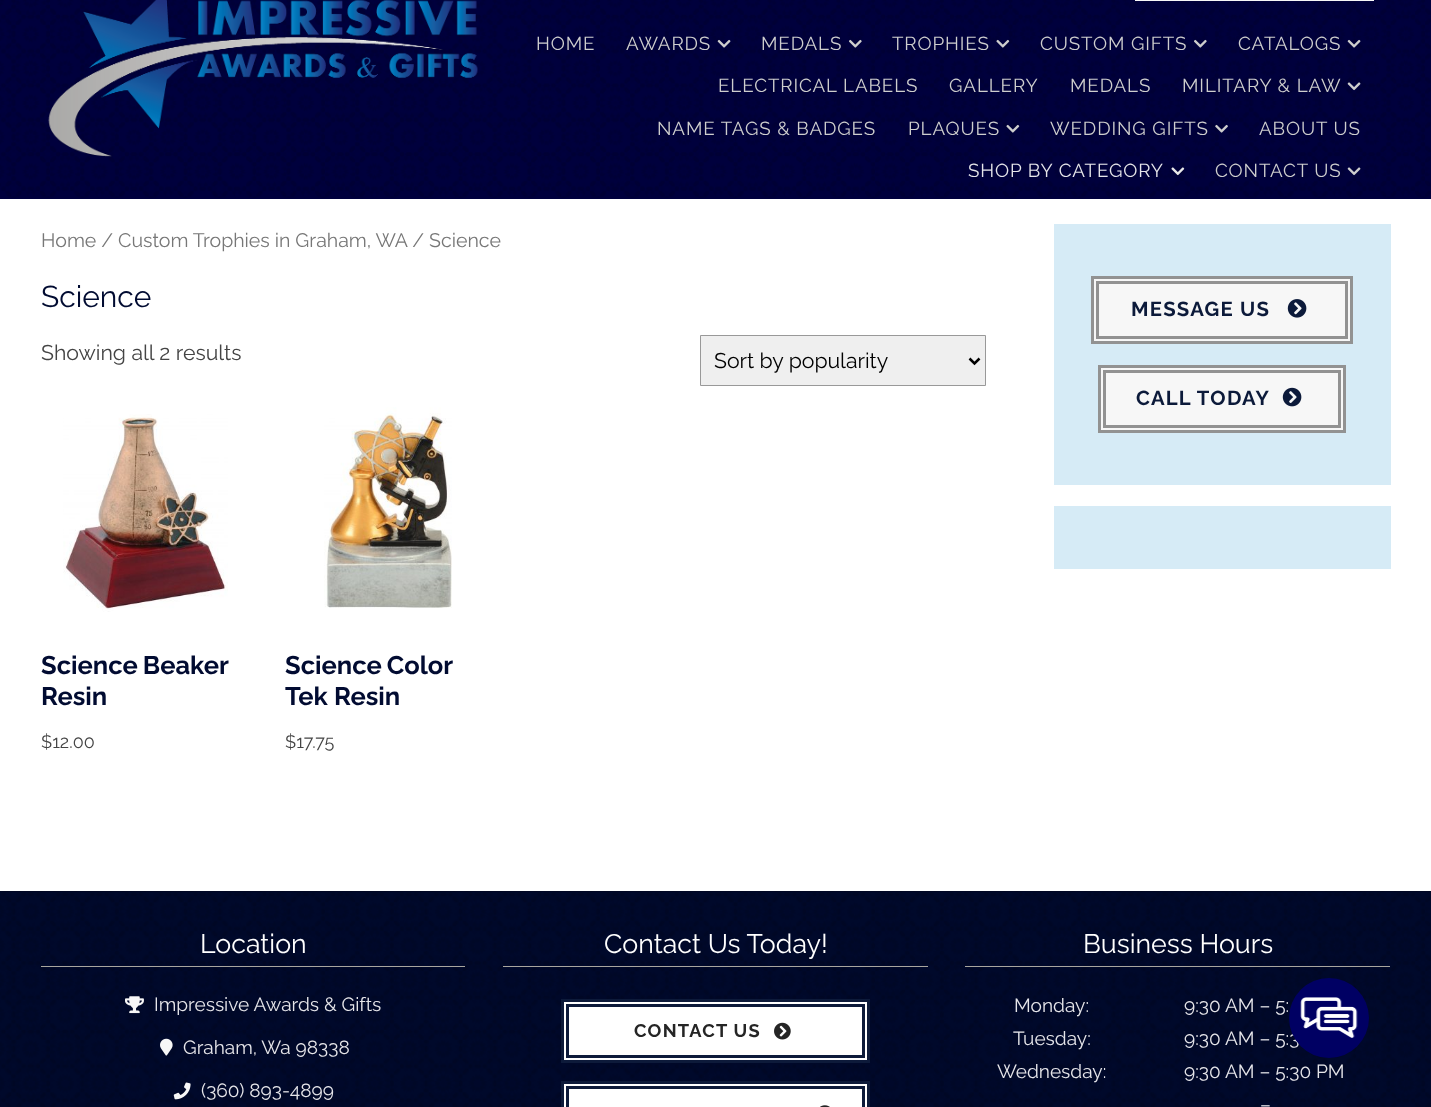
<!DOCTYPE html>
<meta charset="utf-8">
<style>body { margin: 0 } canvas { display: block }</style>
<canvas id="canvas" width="1431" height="1107"></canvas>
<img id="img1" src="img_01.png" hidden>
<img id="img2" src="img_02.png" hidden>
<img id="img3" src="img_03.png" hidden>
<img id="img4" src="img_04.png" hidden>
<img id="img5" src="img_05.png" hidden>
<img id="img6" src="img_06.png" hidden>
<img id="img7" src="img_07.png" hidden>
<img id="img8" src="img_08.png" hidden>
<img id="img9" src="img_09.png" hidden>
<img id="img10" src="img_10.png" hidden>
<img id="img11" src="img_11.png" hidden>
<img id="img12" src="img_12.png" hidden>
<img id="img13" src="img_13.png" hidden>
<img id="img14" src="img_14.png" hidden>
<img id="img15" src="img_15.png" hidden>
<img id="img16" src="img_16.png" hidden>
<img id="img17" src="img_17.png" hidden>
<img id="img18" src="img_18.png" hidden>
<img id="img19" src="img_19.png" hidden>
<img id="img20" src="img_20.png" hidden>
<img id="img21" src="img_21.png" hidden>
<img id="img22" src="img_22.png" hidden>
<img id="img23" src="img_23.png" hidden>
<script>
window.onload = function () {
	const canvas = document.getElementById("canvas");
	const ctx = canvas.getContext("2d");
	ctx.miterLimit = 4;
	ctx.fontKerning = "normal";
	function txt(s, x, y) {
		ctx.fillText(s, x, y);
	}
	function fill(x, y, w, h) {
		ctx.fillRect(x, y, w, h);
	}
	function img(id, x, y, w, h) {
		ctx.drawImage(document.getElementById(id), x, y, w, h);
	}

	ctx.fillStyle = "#FFFFFF";
	fill(0, 0, 1431, 1107);
	ctx.fillStyle = "#00003D";
	fill(0, 0, 1431, 199);
	img("img1", 0, 0, 1431, 198);
	img("img2", 48, 0, 430, 157);
	ctx.fillStyle = "#F7F7F7";
	fill(1135, 0, 239, 1);
	img("img3", 717, 39, 14, 9);
	img("img4", 849, 39, 13, 9);
	img("img5", 996, 39, 14, 9);
	img("img6", 1194, 39, 13, 9);
	img("img7", 1347, 39, 14, 9);
	img("img8", 1347, 82, 14, 9);
	img("img9", 1006, 124, 14, 9);
	img("img10", 1215, 124, 13, 9);
	img("img11", 1171, 167, 14, 9);
	img("img12", 1347, 167, 14, 9);
	ctx.fillStyle = "#EFEFEF";
	ctx.beginPath();
	ctx.rect(700.5, 335.5, 285, 50);
	ctx.fill();
	ctx.strokeStyle = "#999999";
	ctx.stroke();
	ctx.beginPath();
	ctx.moveTo(969.5, 358.5);
	ctx.lineTo(974.5, 363.5);
	ctx.lineTo(979.5, 358.5);
	ctx.strokeStyle = "#000000";
	ctx.lineWidth = 2.5;
	ctx.stroke();
	img("img13", 63, 414, 165, 198);
	img("img14", 324, 407, 128, 201);
	ctx.fillStyle = "#D6EBF6";
	fill(1054, 224, 337, 261);
	ctx.fillStyle = "#F7F7F7";
	ctx.beginPath();
	ctx.rect(1092.5, 277.5, 259, 65);
	ctx.fill();
	ctx.strokeStyle = "#929292";
	ctx.lineWidth = 3;
	ctx.stroke();
	ctx.strokeRect(1097.5, 282.5, 249, 55);
	img("img15", 1287, 299, 20, 19);
	ctx.beginPath();
	ctx.rect(1099.5, 366.5, 245, 65);
	ctx.fill();
	ctx.stroke();
	ctx.strokeRect(1104.5, 371.5, 235, 55);
	img("img16", 1282, 387, 20, 20);
	ctx.fillStyle = "#D6EBF6";
	fill(1054, 506, 337, 63);
	ctx.fillStyle = "#00092B";
	fill(0, 891, 1431, 216);
	img("img17", 0, 891, 1431, 216);
	ctx.fillStyle = "rgba(0, 0, 0, 0.15)";
	fill(0, 891, 1431, 1);
	ctx.fillStyle = "#A8A69F";
	fill(41, 966, 424, 1);
	img("img18", 125, 996, 19, 18);
	img("img19", 160, 1038, 13, 18);
	img("img20", 173, 1082, 18, 18);
	fill(503, 966, 425, 1);
	ctx.fillStyle = "#FFFFFF";
	ctx.beginPath();
	ctx.rect(562.5, 1000.5, 306, 61);
	ctx.fill();
	ctx.strokeStyle = "#0D1A3A";
	ctx.stroke();
	ctx.strokeRect(567.5, 1005.5, 296, 51);
	img("img21", 774, 1022, 17, 18);
	ctx.beginPath();
	ctx.rect(562.5, 1082.5, 306, 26);
	ctx.fill();
	ctx.stroke();
	ctx.strokeRect(567.5, 1087.5, 296, 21);
	img("img22", 820, 1105, 10, 2);
	ctx.fillStyle = "#A8A69F";
	fill(965, 966, 425, 1);
	ctx.letterSpacing = "0.9px";
	ctx.font = "18.75px Raleway";
	ctx.fillStyle = "#CECECE";
	txt("HOME", 536, 50);
	txt("AWARDS", 626, 50);
	txt("MEDALS", 761, 50);
	txt("TROPHIES", 892, 50);
	txt("CUSTOM GIFTS", 1040, 50);
	txt("CATALOGS", 1238, 50);
	txt("ELECTRICAL LABELS", 718, 92);
	txt("GALLERY", 949, 92);
	txt("MEDALS", 1070, 92);
	txt("MILITARY & LAW", 1182, 92);
	txt("NAME TAGS & BADGES", 657, 135);
	txt("PLAQUES", 908, 135);
	txt("WEDDING GIFTS", 1050, 135);
	txt("ABOUT US", 1259, 135);
	ctx.fillStyle = "#E6E6EA";
	txt("SHOP BY CATEGORY", 968, 177);
	ctx.fillStyle = "#CECECE";
	txt("CONTACT US", 1215, 177);
	ctx.letterSpacing = "0px";
	ctx.font = "19.55px Raleway";
	ctx.fillStyle = "#777777";
	txt("Home / Custom Trophies in Graham, WA / Science", 41, 247);
	ctx.font = "30px Raleway";
	ctx.fillStyle = "#010B31";
	txt("Science", 41, 307);
	ctx.font = "21.25px Raleway";
	ctx.fillStyle = "#444444";
	txt("Showing all 2 results", 41, 360);
	ctx.fillStyle = "#000000";
	txt("Sort by popularity", 714, 368);
	ctx.wordSpacing = "-1px";
	ctx.font = "bold 25.5px Raleway";
	ctx.fillStyle = "#010B31";
	txt("Science Beaker", 41, 674);
	ctx.wordSpacing = "0px";
	txt("Resin", 41, 705);
	ctx.font = "18px Raleway";
	ctx.fillStyle = "#444444";
	txt("$12.00", 41, 748);
	ctx.wordSpacing = "-1px";
	ctx.font = "bold 25.5px Raleway";
	ctx.fillStyle = "#010B31";
	txt("Science Color", 285, 674);
	ctx.wordSpacing = "0px";
	txt("Tek Resin", 285, 705);
	ctx.font = "18px Raleway";
	ctx.fillStyle = "#444444";
	txt("$17.75", 285, 748);
	ctx.letterSpacing = "1.25px";
	ctx.font = "bold 20.25px Raleway";
	ctx.fillStyle = "#0C1A3A";
	txt("MESSAGE US", 1131, 316);
	txt("CALL TODAY", 1136, 405);
	ctx.letterSpacing = "0px";
	ctx.font = "26.75px Raleway";
	ctx.fillStyle = "#FFFFFF";
	txt("Location", 200, 953);
	ctx.font = "19.1px Raleway";
	ctx.fillStyle = "#E6E6EA";
	txt("Impressive Awards & Gifts", 154, 1011);
	txt("Graham, Wa 98338", 183, 1054);
	txt("(360) 893-4899", 201, 1097);
	ctx.font = "26.75px Raleway";
	ctx.fillStyle = "#FFFFFF";
	txt("Contact Us Today!", 604, 953);
	ctx.letterSpacing = "1.25px";
	ctx.font = "bold 18.25px Raleway";
	ctx.fillStyle = "#252525";
	txt("CONTACT US", 634, 1037);
	ctx.letterSpacing = "0px";
	ctx.font = "26.75px Raleway";
	ctx.fillStyle = "#FFFFFF";
	txt("Business Hours", 1083, 953);
	ctx.font = "19.1px Raleway";
	ctx.fillStyle = "#E6E6EA";
	txt("Monday:", 1014, 1012);
	txt("9:30 AM – 5:", 1184, 1012);
	txt("Tuesday:", 1013, 1045);
	txt("9:30 AM – 5:3", 1184, 1045);
	txt("Wednesday:", 997, 1078);
	txt("9:30 AM – 5:30 PM", 1184, 1078);
	txt("–", 1260, 1111);
	ctx.fillStyle = "#000063";
	ctx.beginPath();
	ctx.arc(1329, 1018, 40, 0, Math.PI * 2);
	ctx.fill();
	img("img23", 1300, 997, 58, 41);
};
</script>
